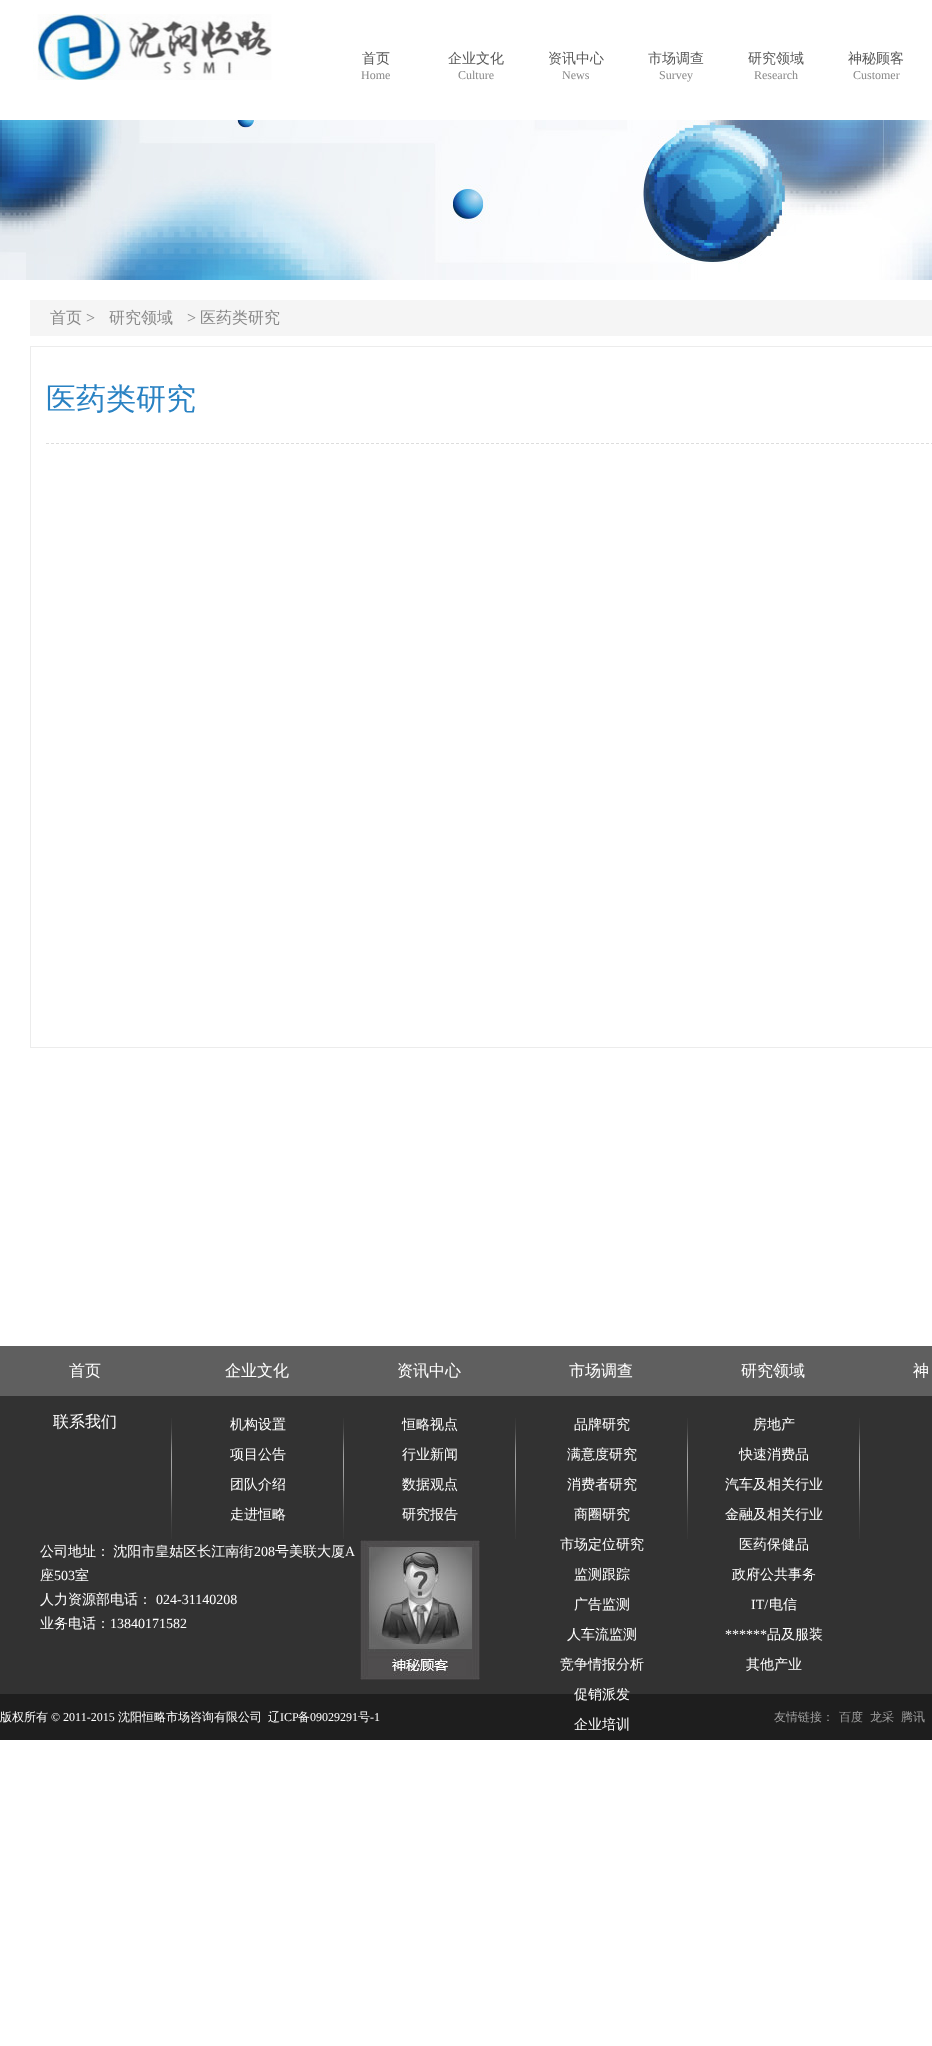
<!DOCTYPE html>
<meta charset="utf-8">
<style>body { margin: 0 } canvas { display: block }</style>
<canvas id="canvas" width="932" height="2046"></canvas>
<img id="img1" src="img_01.png" hidden>
<img id="img2" src="img_02.png" hidden>
<img id="img3" src="img_03.png" hidden>
<img id="img4" src="img_04.png" hidden>
<script>
window.onload = function () {
	const canvas = document.getElementById("canvas");
	const ctx = canvas.getContext("2d");
	ctx.miterLimit = 4;
	ctx.fontKerning = "normal";
	function txt(s, x, y) {
		ctx.fillText(s, x, y);
	}
	function fill(x, y, w, h) {
		ctx.fillRect(x, y, w, h);
	}
	function img(id, x, y, w, h) {
		ctx.drawImage(document.getElementById(id), x, y, w, h);
	}

	ctx.fillStyle = "#FFFFFF";
	fill(0, 0, 932, 2046);
	img("img1", 33, 14, 239, 66);
	img("img2", 0, 120, 932, 160);
	ctx.fillStyle = "#F5F5F5";
	fill(30, 300, 902, 36);
	ctx.strokeStyle = "#ECECEC";
	ctx.strokeRect(30.5, 346.5, 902, 701);
	ctx.beginPath();
	ctx.moveTo(46, 443.5);
	ctx.lineTo(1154, 443.5);
	ctx.strokeStyle = "#DDDDDD";
	ctx.setLineDash([3, 2]);
	ctx.stroke();
	ctx.fillStyle = "#5F5F5F";
	fill(0, 1346, 932, 50);
	ctx.fillStyle = "#323232";
	fill(0, 1396, 932, 298);
	img("img3", 171, 1418, 1, 121);
	img("img3", 343, 1418, 1, 121);
	img("img3", 515, 1418, 1, 121);
	img("img3", 687, 1418, 1, 121);
	img("img3", 859, 1418, 1, 121);
	img("img4", 360, 1540, 120, 140);
	ctx.fillStyle = "#1E1E1E";
	fill(0, 1694, 932, 46);
	ctx.font = "500 14px WenQuanYi Zen Hei";
	ctx.fillStyle = "#575757";
	txt("首页", 362, 63);
	ctx.font = "12px Liberation Serif";
	ctx.fillStyle = "#888888";
	txt("Home", 361, 79);
	ctx.font = "500 14px WenQuanYi Zen Hei";
	ctx.fillStyle = "#575757";
	txt("企业文化", 448, 63);
	ctx.font = "12px Liberation Serif";
	ctx.fillStyle = "#888888";
	txt("Culture", 458, 79);
	ctx.font = "500 14px WenQuanYi Zen Hei";
	ctx.fillStyle = "#575757";
	txt("资讯中心", 548, 63);
	ctx.font = "12px Liberation Serif";
	ctx.fillStyle = "#888888";
	txt("News", 562, 79);
	ctx.font = "500 14px WenQuanYi Zen Hei";
	ctx.fillStyle = "#575757";
	txt("市场调查", 648, 63);
	ctx.font = "12px Liberation Serif";
	ctx.fillStyle = "#888888";
	txt("Survey", 659, 79);
	ctx.font = "500 14px WenQuanYi Zen Hei";
	ctx.fillStyle = "#575757";
	txt("研究领域", 748, 63);
	ctx.font = "12px Liberation Serif";
	ctx.fillStyle = "#888888";
	txt("Research", 754, 79);
	ctx.font = "500 14px WenQuanYi Zen Hei";
	ctx.fillStyle = "#575757";
	txt("神秘顾客", 848, 63);
	ctx.font = "12px Liberation Serif";
	ctx.fillStyle = "#888888";
	txt("Customer", 853, 79);
	ctx.font = "500 16px WenQuanYi Zen Hei";
	txt("首页", 50, 323);
	ctx.font = "16px Liberation Serif";
	txt(">", 86, 323);
	ctx.font = "500 16px WenQuanYi Zen Hei";
	txt("研究领域", 109, 323);
	ctx.font = "16px Liberation Serif";
	txt(">", 187, 323);
	ctx.font = "500 16px WenQuanYi Zen Hei";
	txt("医药类研究", 200, 323);
	ctx.font = "500 30px WenQuanYi Zen Hei";
	ctx.fillStyle = "#2982C3";
	txt("医药类研究", 46, 409);
	ctx.font = "500 16px WenQuanYi Zen Hei";
	ctx.fillStyle = "#FFFFFF";
	txt("首页", 69, 1376);
	txt("企业文化", 225, 1376);
	txt("资讯中心", 397, 1376);
	txt("市场调查", 569, 1376);
	txt("研究领域", 741, 1376);
	txt("神", 913, 1376);
	txt("联系我们", 53, 1427);
	ctx.font = "500 14px WenQuanYi Zen Hei";
	txt("机构设置", 230, 1429);
	txt("项目公告", 230, 1459);
	txt("团队介绍", 230, 1489);
	txt("走进恒略", 230, 1519);
	txt("恒略视点", 402, 1429);
	txt("行业新闻", 402, 1459);
	txt("数据观点", 402, 1489);
	txt("研究报告", 402, 1519);
	txt("品牌研究", 574, 1429);
	txt("满意度研究", 567, 1459);
	txt("消费者研究", 567, 1489);
	txt("商圈研究", 574, 1519);
	txt("市场定位研究", 560, 1549);
	txt("监测跟踪", 574, 1579);
	txt("广告监测", 574, 1609);
	txt("人车流监测", 567, 1639);
	txt("竞争情报分析", 560, 1669);
	txt("促销派发", 574, 1699);
	txt("企业培训", 574, 1729);
	txt("房地产", 753, 1429);
	txt("快速消费品", 739, 1459);
	txt("汽车及相关行业", 725, 1489);
	txt("金融及相关行业", 725, 1519);
	txt("医药保健品", 739, 1549);
	txt("政府公共事务", 732, 1579);
	ctx.font = "14px Liberation Serif";
	txt("IT/", 751, 1609);
	ctx.font = "500 14px WenQuanYi Zen Hei";
	txt("电信", 769, 1609);
	ctx.font = "14px Liberation Serif";
	txt("******", 725, 1639);
	ctx.font = "500 14px WenQuanYi Zen Hei";
	txt("品及服装", 767, 1639);
	txt("其他产业", 746, 1669);
	ctx.wordSpacing = "-1px";
	txt("公司地址： 沈阳市皇姑区长江南街", 40, 1556);
	ctx.wordSpacing = "0px";
	ctx.font = "14px Liberation Serif";
	txt("208", 254, 1556);
	ctx.font = "500 14px WenQuanYi Zen Hei";
	txt("号美联大厦", 275, 1556);
	ctx.font = "14px Liberation Serif";
	txt("A", 345, 1556);
	ctx.font = "500 14px WenQuanYi Zen Hei";
	txt("座", 40, 1580);
	ctx.font = "14px Liberation Serif";
	txt("503", 54, 1580);
	ctx.font = "500 14px WenQuanYi Zen Hei";
	txt("室", 75, 1580);
	txt("人力资源部电话：", 40, 1604);
	ctx.font = "14px Liberation Serif";
	txt("024-31140208", 156, 1604);
	ctx.font = "500 14px WenQuanYi Zen Hei";
	txt("业务电话：", 40, 1628);
	ctx.font = "14px Liberation Serif";
	txt("13840171582", 110, 1628);
	ctx.font = "500 12px WenQuanYi Zen Hei";
	txt("版权所有", 0, 1721);
	ctx.font = "12px Liberation Serif";
	txt("© 2011-2015", 51, 1721);
	ctx.font = "500 12px WenQuanYi Zen Hei";
	txt("沈阳恒略市场咨询有限公司", 118, 1721);
	txt("辽", 268, 1721);
	ctx.font = "12px Liberation Serif";
	txt("ICP", 280, 1721);
	ctx.font = "500 12px WenQuanYi Zen Hei";
	txt("备", 298, 1721);
	ctx.font = "12px Liberation Serif";
	txt("09029291", 310, 1721);
	ctx.font = "500 12px WenQuanYi Zen Hei";
	txt("号", 358, 1721);
	ctx.font = "12px Liberation Serif";
	txt("-1", 370, 1721);
	ctx.font = "500 12px WenQuanYi Zen Hei";
	ctx.fillStyle = "#9E9E9E";
	txt("友情链接：", 774, 1721);
	txt("百度", 839, 1721);
	txt("龙采", 870, 1721);
	txt("腾讯", 901, 1721);
};
</script>
